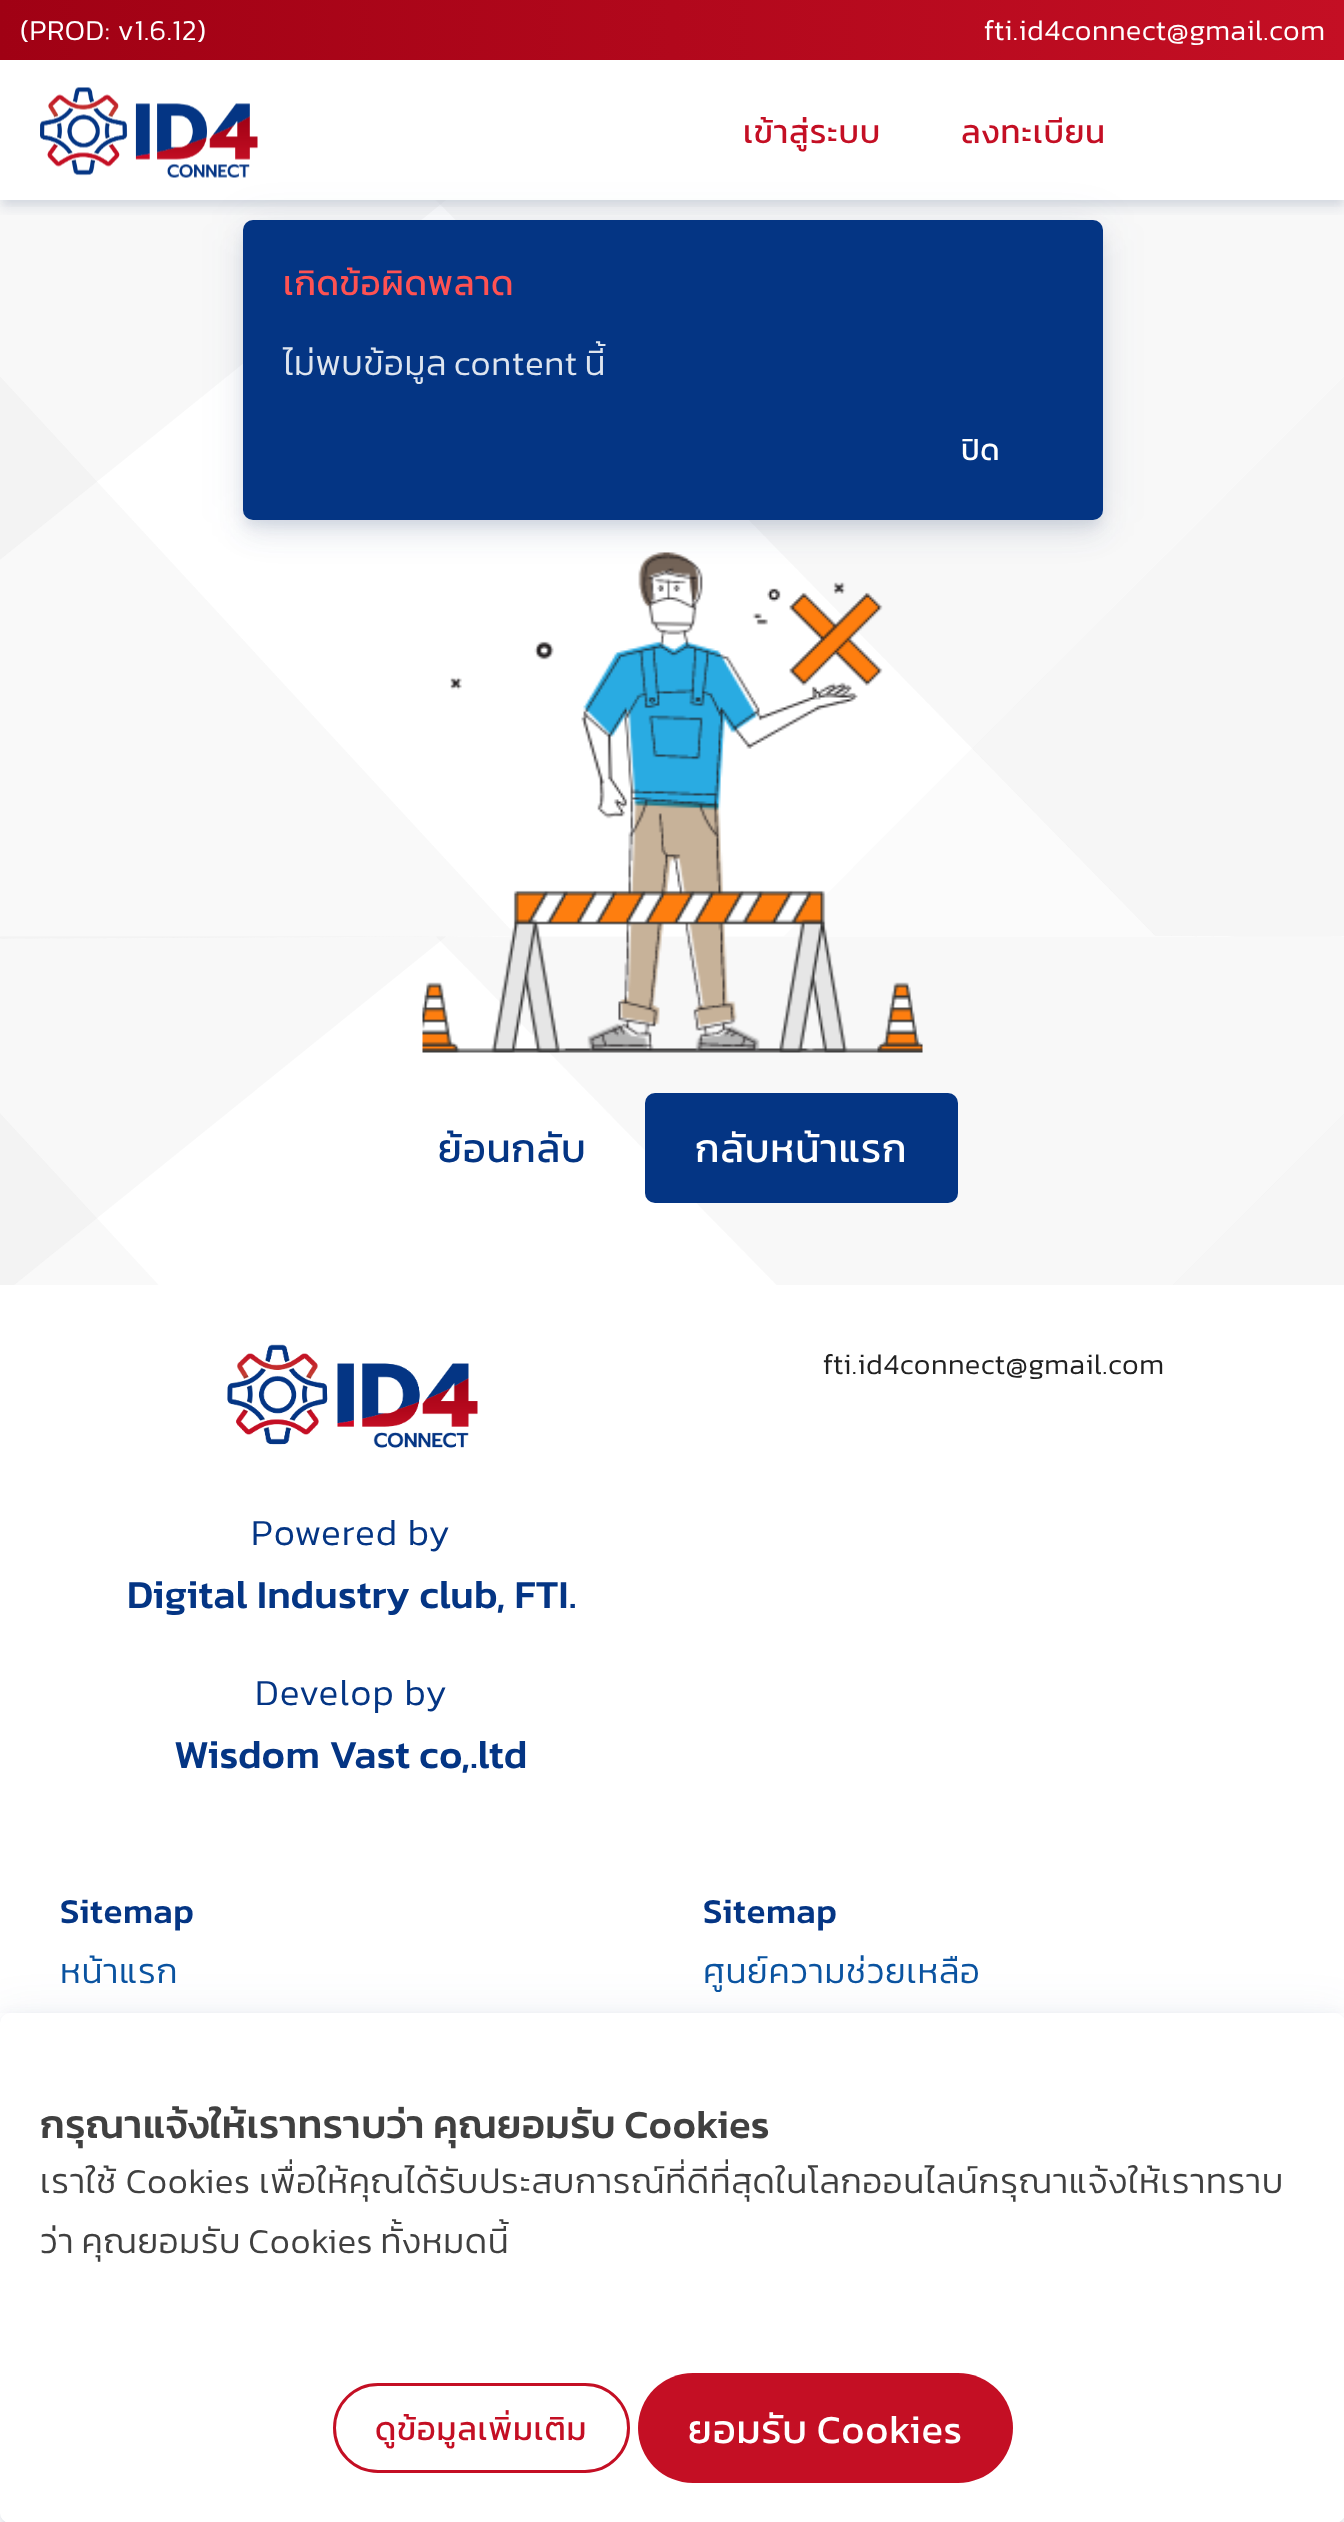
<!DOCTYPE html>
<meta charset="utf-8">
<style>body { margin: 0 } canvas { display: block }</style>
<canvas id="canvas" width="1344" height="2522"></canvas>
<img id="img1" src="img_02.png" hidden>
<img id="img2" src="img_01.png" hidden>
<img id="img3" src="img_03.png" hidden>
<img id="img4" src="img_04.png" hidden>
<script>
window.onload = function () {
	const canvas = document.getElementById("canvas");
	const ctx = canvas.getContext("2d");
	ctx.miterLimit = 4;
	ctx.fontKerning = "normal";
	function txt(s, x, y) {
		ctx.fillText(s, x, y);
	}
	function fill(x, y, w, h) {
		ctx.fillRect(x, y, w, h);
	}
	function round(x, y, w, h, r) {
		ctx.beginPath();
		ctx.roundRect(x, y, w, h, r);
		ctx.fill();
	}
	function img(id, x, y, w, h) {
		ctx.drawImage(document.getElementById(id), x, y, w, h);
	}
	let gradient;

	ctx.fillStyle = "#FFFFFF";
	fill(0, 0, 1344, 2522);
	gradient = ctx.createLinearGradient(0, 30, 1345, 30);
	gradient.addColorStop(0, "#A00114");
	gradient.addColorStop(1, "#C40F24");
	ctx.fillStyle = gradient;
	fill(0, 0, 1344, 60);
	img("img1", 0, 200, 1344, 1085);
	ctx.save();
	ctx.beginPath();
	ctx.rect(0, 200, 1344, 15);
	ctx.clip();
	ctx.fillStyle = "rgba(42, 69, 109, 0.09)";
	ctx.filter = "blur(6px)";
	ctx.beginPath();
	ctx.rect(0, 70, 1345, 140);
	ctx.fill();
	ctx.filter = "none";
	ctx.restore();
	ctx.save();
	ctx.beginPath();
	ctx.rect(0, 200, 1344, 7);
	ctx.clip();
	ctx.fillStyle = "rgba(42, 69, 109, 0.1)";
	ctx.filter = "blur(5px)";
	ctx.beginPath();
	ctx.rect(3, 68, 1340, 135);
	ctx.fill();
	ctx.filter = "none";
	ctx.restore();
	img("img2", 40, 87, 218, 91);
	img("img3", 422, 552, 501, 501);
	ctx.fillStyle = "rgba(42, 69, 109, 0.08)";
	ctx.filter = "blur(22.5px)";
	ctx.beginPath();
	ctx.roundRect(243, 223, 860, 300, 10);
	ctx.fill();
	ctx.filter = "none";
	ctx.fillStyle = "rgba(42, 69, 109, 0.09)";
	ctx.filter = "blur(12.5px)";
	ctx.beginPath();
	ctx.roundRect(243, 235, 860, 300, 10);
	ctx.fill();
	ctx.filter = "none";
	ctx.fillStyle = "rgba(42, 69, 109, 0.1)";
	ctx.filter = "blur(6px)";
	ctx.beginPath();
	ctx.roundRect(245, 230, 855, 295, 8);
	ctx.fill();
	ctx.filter = "none";
	ctx.fillStyle = "#043584";
	round(243, 220, 860, 300, 10);
	round(645, 1093, 313, 110, 10);
	img("img4", 227, 1344, 251, 104);
	ctx.fillStyle = "rgba(42, 69, 109, 0.08)";
	ctx.filter = "blur(22.5px)";
	ctx.beginPath();
	ctx.rect(0, 2015, 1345, 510);
	ctx.fill();
	ctx.filter = "none";
	ctx.fillStyle = "#FFFFFF";
	fill(0, 2013, 1344, 509);
	ctx.fillStyle = "rgba(42, 69, 109, 0.08)";
	ctx.filter = "blur(6px)";
	ctx.beginPath();
	ctx.roundRect(0, 2015, 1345, 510, 10);
	ctx.fill();
	ctx.filter = "none";
	ctx.fillStyle = "rgba(42, 69, 109, 0.09)";
	ctx.filter = "blur(2.5px)";
	ctx.beginPath();
	ctx.roundRect(0, 2018, 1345, 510, 10);
	ctx.fill();
	ctx.filter = "none";
	ctx.fillStyle = "rgba(42, 69, 109, 0.1)";
	ctx.filter = "blur(1px)";
	ctx.beginPath();
	ctx.roundRect(5, 2025, 1335, 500, 5);
	ctx.fill();
	ctx.filter = "none";
	ctx.fillStyle = "#FFFFFF";
	round(0, 2013, 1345, 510, 10);
	ctx.beginPath();
	ctx.roundRect(334.5, 2384.5, 294, 87, 43.5);
	ctx.strokeStyle = "#C40F24";
	ctx.lineWidth = 3;
	ctx.stroke();
	ctx.fillStyle = "#C40F24";
	round(638, 2373, 375, 110, 55);
	ctx.letterSpacing = "0.6px";
	ctx.font = "300 29px Kanit";
	ctx.fillStyle = "#FFFFFF";
	txt("(PROD: v1.6.12)", 20, 40);
	txt("fti.id4connect@gmail.com", 984, 40);
	ctx.letterSpacing = "0.7px";
	ctx.font = "33px Kanit";
	ctx.fillStyle = "#C40F24";
	txt("เข้าสู่ระบบ", 743, 143);
	txt("ลงทะเบียน", 961, 143);
	ctx.letterSpacing = "0.63px";
	ctx.font = "35px Kanit";
	ctx.fillStyle = "#FF5252";
	txt("เกิดข้อผิดพลาด", 283, 295);
	ctx.wordSpacing = "-2px";
	ctx.font = "300 35px Kanit";
	ctx.fillStyle = "#DEE5EF";
	txt("ไม่พบข้อมูล content นี้", 283, 375);
	ctx.letterSpacing = "0.5px";
	ctx.wordSpacing = "0px";
	ctx.font = "30px Kanit";
	ctx.fillStyle = "#FFFFFF";
	txt("ปิด", 961, 460);
	ctx.letterSpacing = "0.75px";
	ctx.font = "40px Kanit";
	ctx.fillStyle = "#043584";
	txt("ย้อนกลับ", 438, 1162);
	ctx.fillStyle = "#FFFFFF";
	txt("กลับหน้าแรก", 695, 1162);
	ctx.letterSpacing = "0.6px";
	ctx.font = "300 29px Kanit";
	ctx.fillStyle = "#212121";
	txt("fti.id4connect@gmail.com", 823, 1374);
	ctx.letterSpacing = "1.1px";
	ctx.font = "300 37px Kanit";
	ctx.fillStyle = "#043584";
	txt("Powered by", 251, 1545);
	ctx.letterSpacing = "0.3px";
	ctx.font = "500 40px Kanit";
	txt("Digital Industry club, FTI.", 127, 1608);
	ctx.letterSpacing = "1.1px";
	ctx.font = "300 37px Kanit";
	txt("Develop by", 255, 1705);
	ctx.letterSpacing = "0.3px";
	ctx.font = "500 40px Kanit";
	txt("Wisdom Vast co,.ltd", 174, 1768);
	ctx.letterSpacing = "0.63px";
	ctx.font = "500 35px Kanit";
	txt("Sitemap", 60, 1923);
	ctx.font = "300 35px Kanit";
	ctx.fillStyle = "#0A53A0";
	txt("หน้าแรก", 60, 1983);
	ctx.font = "500 35px Kanit";
	ctx.fillStyle = "#043584";
	txt("Sitemap", 703, 1923);
	ctx.font = "300 35px Kanit";
	ctx.fillStyle = "#0A53A0";
	txt("ศูนย์ความช่วยเหลือ", 703, 1983);
	ctx.letterSpacing = "0.3px";
	ctx.wordSpacing = "-1px";
	ctx.font = "500 40px Kanit";
	ctx.fillStyle = "#404040";
	txt("กรุณาแจ้งให้เราทราบว่า คุณยอมรับ Cookies", 40, 2138);
	ctx.letterSpacing = "0.63px";
	ctx.wordSpacing = "0px";
	ctx.font = "300 35px Kanit";
	txt("เราใช้ Cookies", 40, 2193);
	txt("เพื่อให้คุณได้รับประสบการณ์ที่ดีที่สุดในโลกออนไลน์กรุณาแจ้งให้เราทราบ", 259, 2193);
	ctx.wordSpacing = "-1.5px";
	txt("ว่า คุณยอมรับ Cookies ทั้งหมดนี้", 40, 2253);
	ctx.letterSpacing = "0.7px";
	ctx.wordSpacing = "0px";
	ctx.font = "33px Kanit";
	ctx.fillStyle = "#C40F24";
	txt("ดูข้อมูลเพิ่มเติม", 375, 2440);
	ctx.letterSpacing = "0.75px";
	ctx.wordSpacing = "-1px";
	ctx.font = "40px Kanit";
	ctx.fillStyle = "#FFFFFF";
	txt("ยอมรับ Cookies", 688, 2443);
};
</script>
